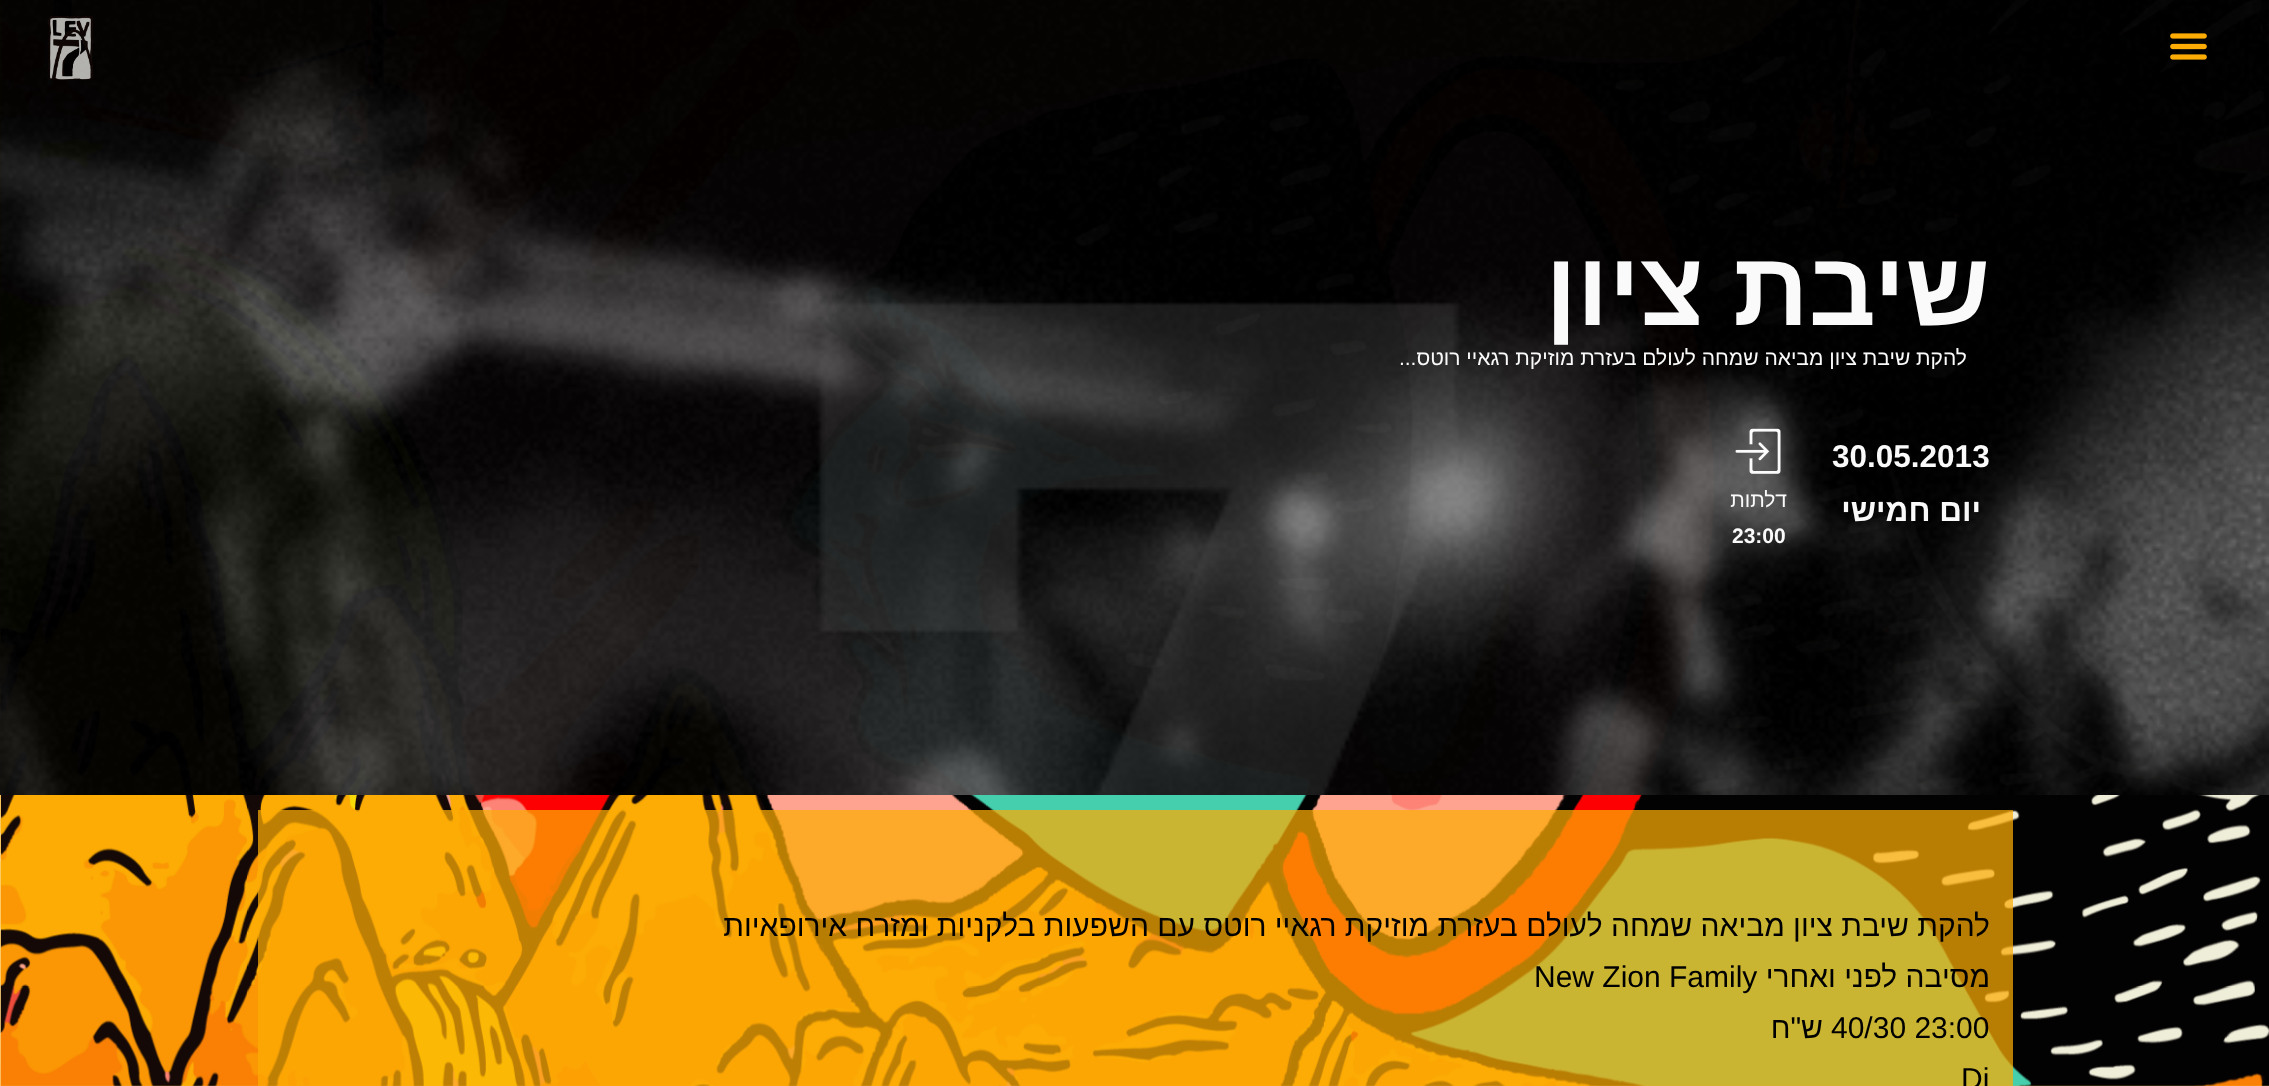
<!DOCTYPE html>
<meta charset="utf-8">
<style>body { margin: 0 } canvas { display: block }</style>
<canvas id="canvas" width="2269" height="1086"></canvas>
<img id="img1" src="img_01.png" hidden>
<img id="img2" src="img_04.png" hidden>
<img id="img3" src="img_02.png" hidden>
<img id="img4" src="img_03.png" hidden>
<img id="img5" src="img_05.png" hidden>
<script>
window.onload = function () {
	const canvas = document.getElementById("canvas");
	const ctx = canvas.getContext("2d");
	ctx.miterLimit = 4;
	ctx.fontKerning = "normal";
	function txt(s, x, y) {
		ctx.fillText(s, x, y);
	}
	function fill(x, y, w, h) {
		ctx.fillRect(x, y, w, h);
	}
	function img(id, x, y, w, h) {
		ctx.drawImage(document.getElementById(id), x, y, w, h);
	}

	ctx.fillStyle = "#FDC247";
	fill(0, 0, 2269, 1086);
	img("img1", 0, 0, 2269, 1086);
	img("img2", 0, 0, 2269, 795);
	img("img3", 2170, 33, 37, 27);
	img("img4", 48, 16, 45, 64);
	img("img5", 1735, 428, 46, 46);
	ctx.fillStyle = "rgba(252, 172, 4, 0.73)";
	fill(258, 810, 1755, 276);
	ctx.direction = "rtl";
	ctx.font = "bold 105px Liberation Sans";
	ctx.fillStyle = "#FAFAFA";
	txt("שיבת ציון", 1990, 325);
	ctx.font = "21px Liberation Sans";
	txt("להקת שיבת ציון מביאה שמחה לעולם בעזרת מוזיקת רגאיי רוטס...", 1967, 365);
	ctx.direction = "ltr";
	ctx.font = "bold 31.5px Liberation Sans";
	txt("30.05.2013", 1832, 467);
	ctx.direction = "rtl";
	txt("יום חמישי", 1981, 521);
	ctx.font = "21px Liberation Sans";
	txt("דלתות", 1787, 507);
	ctx.direction = "ltr";
	ctx.font = "bold 21px Liberation Sans";
	txt("23:00", 1732, 543);
	ctx.direction = "rtl";
	ctx.font = "30px Liberation Sans";
	ctx.fillStyle = "#000000";
	txt("להקת שיבת ציון מביאה שמחה לעולם בעזרת מוזיקת רגאיי רוטס עם השפעות בלקניות ומזרח אירופאיות", 1990, 936);
	txt("מסיבה לפני ואחרי", 1990, 987);
	ctx.direction = "ltr";
	txt("New Zion Family", 1534, 987);
	txt("40/30 23:00", 1831, 1038);
	ctx.direction = "rtl";
	txt("ש\"ח", 1823, 1038);
	ctx.direction = "ltr";
	txt("Dj", 1961, 1089);
};
</script>
